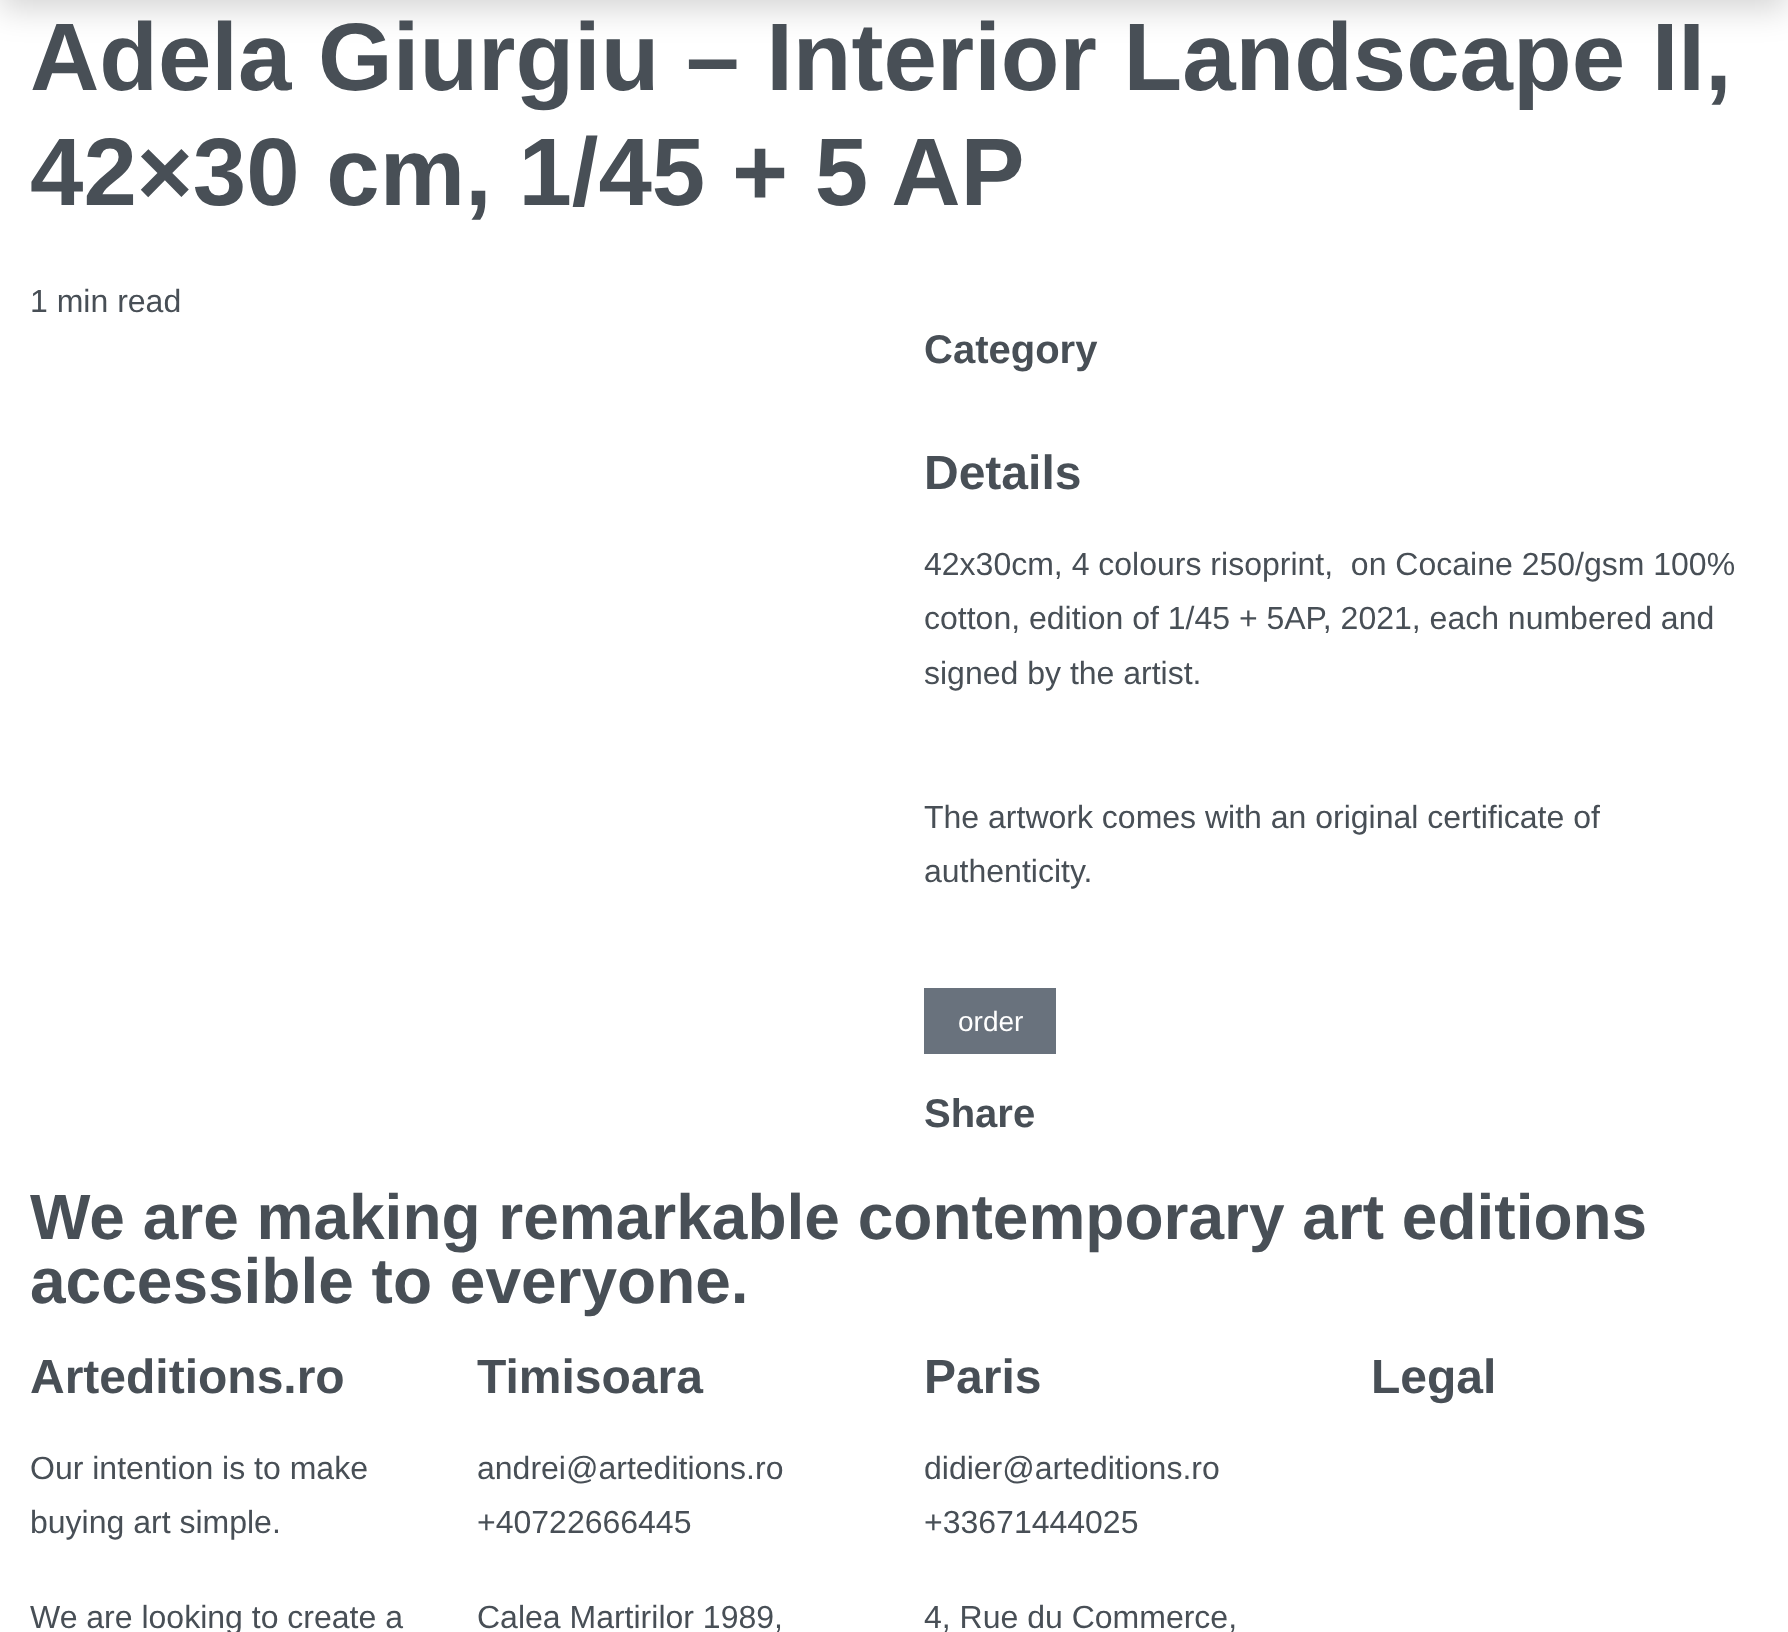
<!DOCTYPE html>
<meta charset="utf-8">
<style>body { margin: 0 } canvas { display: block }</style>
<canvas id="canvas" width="1788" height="1632"></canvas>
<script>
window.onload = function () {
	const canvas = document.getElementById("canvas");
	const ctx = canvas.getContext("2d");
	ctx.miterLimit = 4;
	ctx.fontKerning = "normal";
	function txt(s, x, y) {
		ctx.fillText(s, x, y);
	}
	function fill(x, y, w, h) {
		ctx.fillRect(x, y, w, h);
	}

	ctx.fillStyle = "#FFFFFF";
	fill(0, 0, 1788, 1632);
	ctx.fillStyle = "rgba(0, 0, 0, 0.16)";
	ctx.filter = "blur(16px)";
	ctx.beginPath();
	ctx.rect(0, -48, 1788, 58);
	ctx.fill();
	ctx.filter = "none";
	ctx.fillStyle = "#69727D";
	fill(924, 988, 132, 66);
	ctx.font = "bold 96px Liberation Sans";
	ctx.fillStyle = "#484F56";
	txt("Adela Giurgiu – Interior Landscape II,", 30, 90);
	txt("42×30 cm, 1/45 + 5 AP", 30, 205);
	ctx.font = "32px Liberation Sans";
	txt("1 min read", 30, 312);
	ctx.font = "bold 40px Liberation Sans";
	txt("Category", 924, 363);
	ctx.font = "bold 48px Liberation Sans";
	txt("Details", 924, 489);
	ctx.font = "32px Liberation Sans";
	txt("42x30cm, 4 colours risoprint,  on Cocaine 250/gsm 100%", 924, 575);
	txt("cotton, edition of 1/45 + 5AP, 2021, each numbered and", 924, 629);
	txt("signed by the artist.", 924, 684);
	txt("The artwork comes with an original certificate of", 924, 828);
	txt("authenticity.", 924, 882);
	ctx.font = "28px Liberation Sans";
	ctx.fillStyle = "#FFFFFF";
	txt("order", 958, 1031);
	ctx.font = "bold 40px Liberation Sans";
	ctx.fillStyle = "#484F56";
	txt("Share", 924, 1127);
	ctx.font = "bold 64px Liberation Sans";
	txt("We are making remarkable contemporary art editions", 30, 1239);
	txt("accessible to everyone.", 30, 1303);
	ctx.font = "bold 48px Liberation Sans";
	txt("Arteditions.ro", 30, 1393);
	ctx.font = "32px Liberation Sans";
	txt("Our intention is to make", 30, 1479);
	txt("buying art simple.", 30, 1533);
	txt("We are looking to create a", 30, 1628);
	ctx.font = "bold 48px Liberation Sans";
	txt("Timisoara", 477, 1393);
	ctx.font = "32px Liberation Sans";
	txt("andrei@arteditions.ro", 477, 1479);
	txt("+40722666445", 477, 1533);
	txt("Calea Martirilor 1989,", 477, 1628);
	ctx.font = "bold 48px Liberation Sans";
	txt("Paris", 924, 1393);
	ctx.font = "32px Liberation Sans";
	txt("didier@arteditions.ro", 924, 1479);
	txt("+33671444025", 924, 1533);
	txt("4, Rue du Commerce,", 924, 1628);
	ctx.font = "bold 48px Liberation Sans";
	txt("Legal", 1371, 1393);
};
</script>
